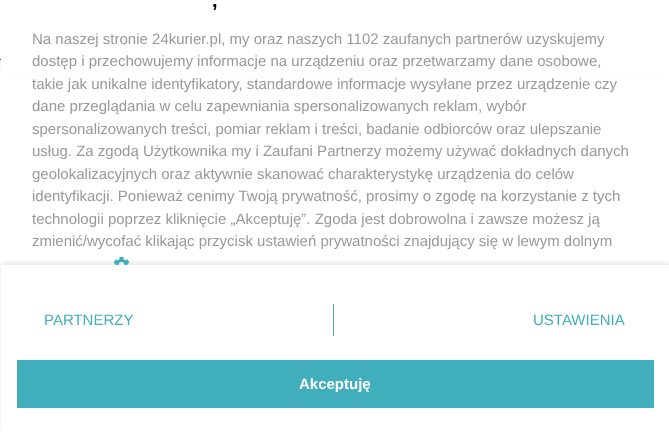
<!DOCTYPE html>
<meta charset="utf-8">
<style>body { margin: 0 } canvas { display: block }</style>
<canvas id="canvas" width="669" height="432"></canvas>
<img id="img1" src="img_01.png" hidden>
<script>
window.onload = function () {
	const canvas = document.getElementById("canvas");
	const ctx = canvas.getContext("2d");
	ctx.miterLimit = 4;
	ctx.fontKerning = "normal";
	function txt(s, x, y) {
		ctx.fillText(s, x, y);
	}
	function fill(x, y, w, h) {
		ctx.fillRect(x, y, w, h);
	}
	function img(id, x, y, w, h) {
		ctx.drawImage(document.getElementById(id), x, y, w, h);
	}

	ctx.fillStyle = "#FFFFFF";
	fill(0, 0, 669, 432);
	ctx.fillStyle = "rgba(25, 31, 39, 0.15)";
	ctx.filter = "blur(6px)";
	ctx.beginPath();
	ctx.rect(0, 7, 669, 60);
	ctx.fill();
	ctx.filter = "none";
	ctx.fillStyle = "#FFFFFF";
	fill(0, 0, 1, 59);
	ctx.fillStyle = "#525860";
	fill(0, 59, 1, 1);
	ctx.fillStyle = "#FFFFFF";
	fill(1, 0, 668, 76);
	ctx.save();
	ctx.beginPath();
	ctx.moveTo(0, 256);
	ctx.lineTo(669, 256);
	ctx.lineTo(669, 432);
	ctx.lineTo(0, 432);
	ctx.closePath();
	ctx.moveTo(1, 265);
	ctx.lineTo(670, 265);
	ctx.lineTo(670, 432);
	ctx.lineTo(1, 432);
	ctx.closePath();
	ctx.clip("evenodd");
	ctx.fillStyle = "rgba(0, 0, 0, 0.1)";
	ctx.filter = "blur(2px)";
	ctx.beginPath();
	ctx.rect(1, 263, 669, 167);
	ctx.fill();
	ctx.filter = "none";
	ctx.restore();
	img("img1", 113, 257, 17, 8);
	ctx.fillStyle = "#41AFBB";
	fill(333, 304, 1, 32);
	fill(17, 360, 637, 48);
	ctx.font = "bold 20px Liberation Sans";
	ctx.fillStyle = "#000000";
	txt(",", 212, 7);
	ctx.font = "15px Liberation Sans";
	ctx.fillStyle = "#999999";
	txt("Na naszej stronie 24kurier.pl, my oraz naszych 1102 zaufanych partnerów uzyskujemy", 32, 44);
	txt("dostęp i przechowujemy informacje na urządzeniu oraz przetwarzamy dane osobowe,", 32, 66);
	txt("takie jak unikalne identyfikatory, standardowe informacje wysyłane przez urządzenie czy", 32, 89);
	txt("dane przeglądania w celu zapewniania spersonalizowanych reklam, wybór", 32, 111);
	txt("spersonalizowanych treści, pomiar reklam i treści, badanie odbiorców oraz ulepszanie", 32, 134);
	txt("usług. Za zgodą Użytkownika my i Zaufani Partnerzy możemy używać dokładnych danych", 32, 156);
	txt("geolokalizacyjnych oraz aktywnie skanować charakterystykę urządzenia do celów", 32, 179);
	txt("identyfikacji. Ponieważ cenimy Twoją prywatność, prosimy o zgodę na korzystanie z tych", 32, 201);
	txt("technologii poprzez kliknięcie „Akceptuję”. Zgoda jest dobrowolna i zawsze możesz ją", 32, 224);
	txt("zmienić/wycofać klikając przycisk ustawień prywatności znajdujący się w lewym dolnym", 32, 246);
	ctx.fillStyle = "#41AFBB";
	txt("PARTNERZY", 44, 325);
	txt("USTAWIENIA", 533, 325);
	ctx.font = "bold 15px Liberation Sans";
	ctx.fillStyle = "#FFFFFF";
	txt("Akceptuję", 299, 389);
};
</script>
